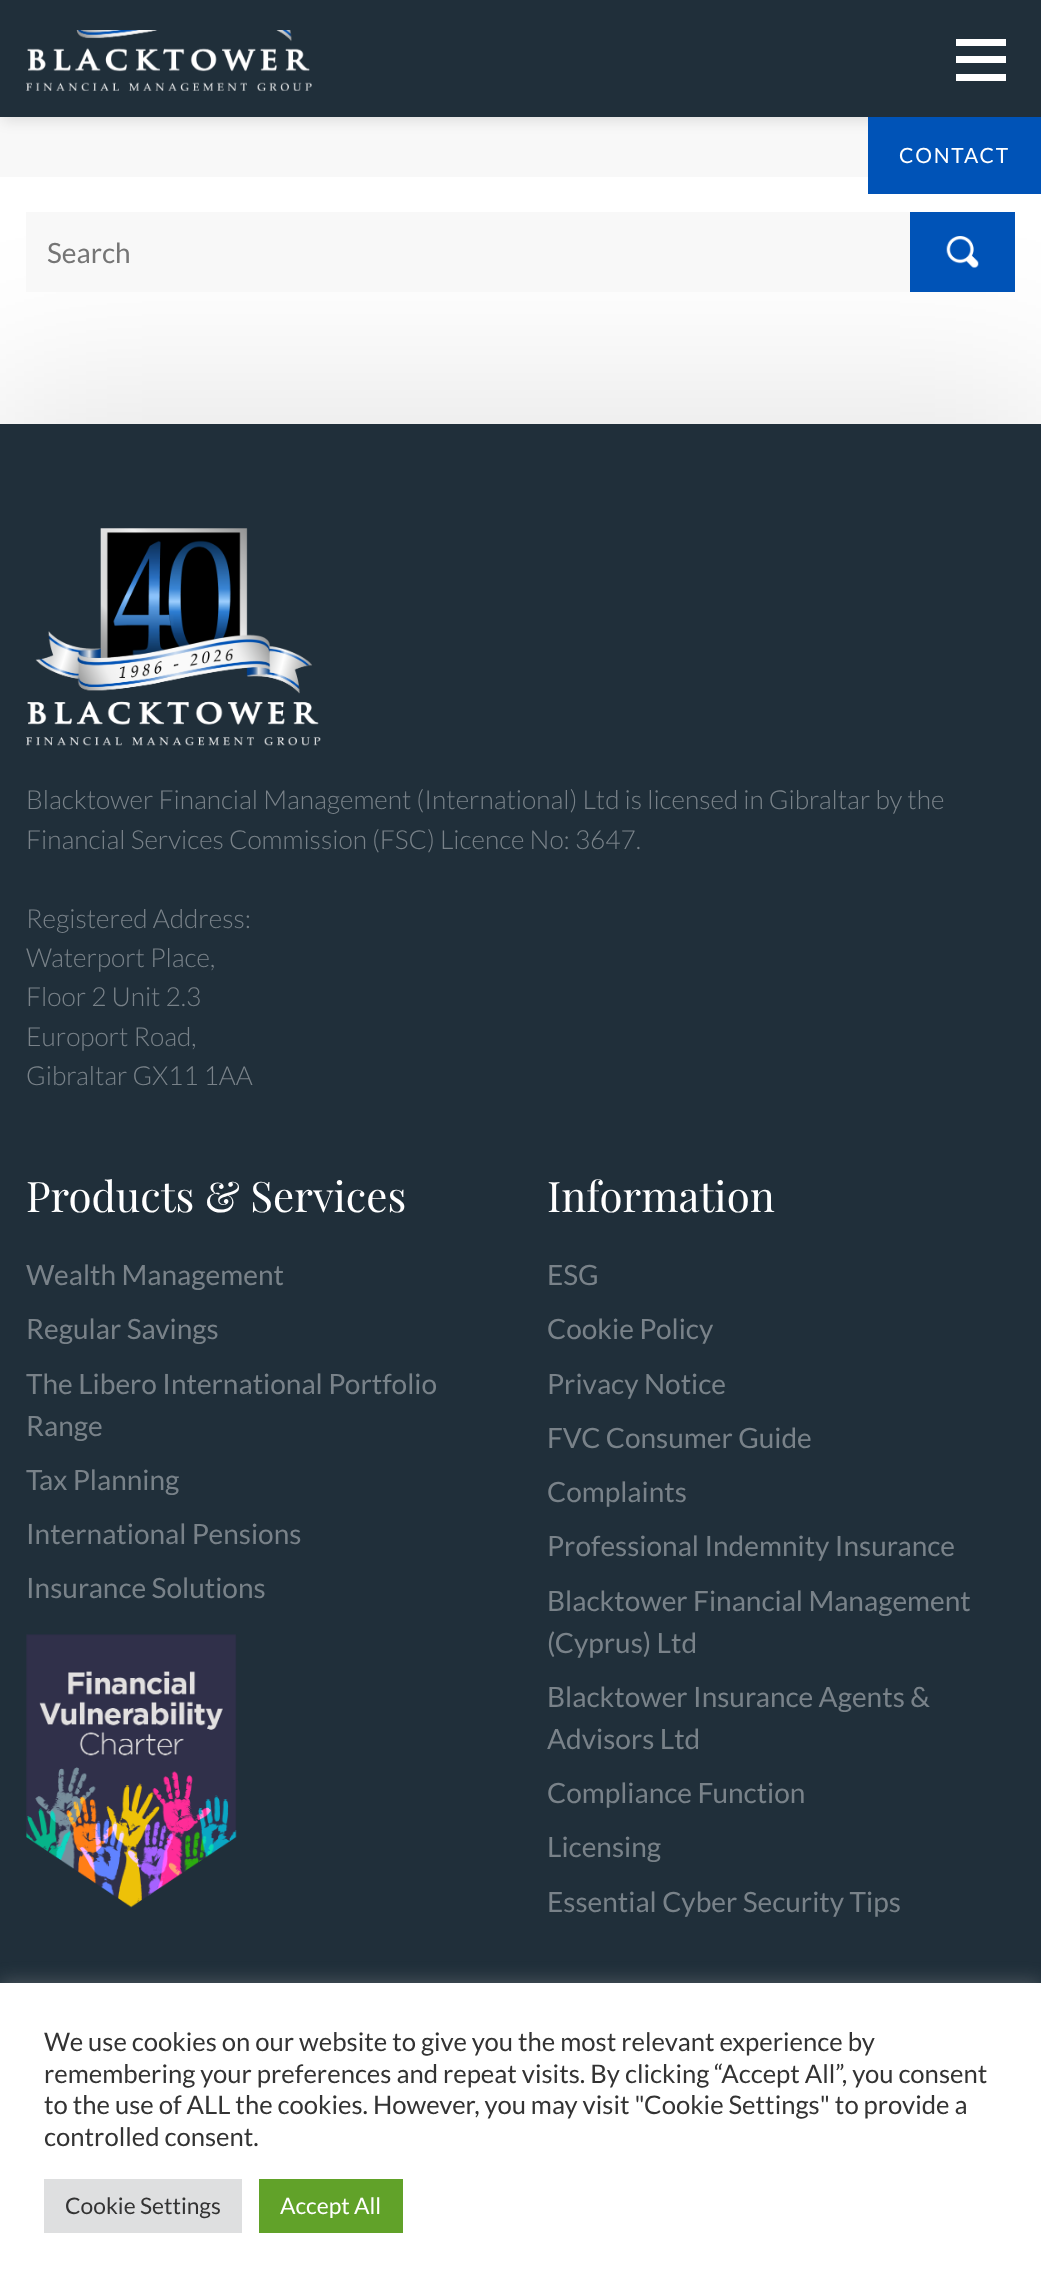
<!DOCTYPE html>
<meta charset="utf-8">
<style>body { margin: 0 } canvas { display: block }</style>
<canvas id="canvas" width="1041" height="2284"></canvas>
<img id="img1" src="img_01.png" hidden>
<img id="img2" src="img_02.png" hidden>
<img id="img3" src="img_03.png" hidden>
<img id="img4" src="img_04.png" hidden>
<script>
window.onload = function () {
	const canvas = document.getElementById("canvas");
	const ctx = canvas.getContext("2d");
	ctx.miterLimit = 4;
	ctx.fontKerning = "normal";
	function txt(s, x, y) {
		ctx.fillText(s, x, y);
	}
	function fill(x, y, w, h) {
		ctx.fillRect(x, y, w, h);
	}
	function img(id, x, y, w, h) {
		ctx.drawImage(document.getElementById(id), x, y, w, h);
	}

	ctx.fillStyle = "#FFFFFF";
	fill(0, 0, 1041, 2284);
	ctx.fillStyle = "#F8F8F8";
	fill(0, 117, 868, 60);
	ctx.fillStyle = "rgba(0, 0, 0, 0.1)";
	ctx.filter = "blur(7px)";
	ctx.beginPath();
	ctx.rect(2, 7, 1038, 114);
	ctx.fill();
	ctx.filter = "none";
	ctx.fillStyle = "#202F3A";
	fill(0, 0, 1041, 117);
	img("img1", 26, 30, 286, 61);
	ctx.fillStyle = "#FFFFFF";
	fill(956, 56, 50, 7);
	fill(956, 39, 50, 7);
	fill(956, 74, 50, 7);
	ctx.fillStyle = "rgba(0, 0, 0, 0.1)";
	ctx.filter = "blur(87.5px)";
	ctx.beginPath();
	ctx.rect(-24, 394, 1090, 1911);
	ctx.fill();
	ctx.filter = "none";
	ctx.fillStyle = "#0053B7";
	fill(868, 117, 173, 77);
	ctx.fillStyle = "#F8F8F8";
	fill(26, 212, 884, 80);
	ctx.fillStyle = "#0053B7";
	fill(910, 212, 105, 80);
	img("img2", 946, 236, 33, 32);
	ctx.fillStyle = "#202F3A";
	fill(0, 424, 1041, 1559);
	img("img3", 26, 528, 295, 218);
	img("img4", 26, 1634, 211, 274);
	ctx.fillStyle = "rgba(172, 171, 171, 0.3)";
	ctx.filter = "blur(9px)";
	ctx.beginPath();
	ctx.rect(0, 1981, 1041, 303);
	ctx.fill();
	ctx.filter = "none";
	ctx.fillStyle = "#FFFFFF";
	fill(0, 1983, 1041, 301);
	ctx.fillStyle = "#DEDFE0";
	fill(44, 2179, 198, 54);
	ctx.fillStyle = "#61A229";
	fill(259, 2179, 144, 54);
	ctx.letterSpacing = "1.75px";
	ctx.font = "21px Lato";
	ctx.fillStyle = "#FFFFFF";
	txt("CONTACT", 899, 163);
	ctx.letterSpacing = "0px";
	ctx.font = "28px Lato";
	ctx.fillStyle = "#757575";
	txt("Search", 47, 263);
	ctx.font = "300 26.25px Lato";
	ctx.fillStyle = "#798289";
	txt("Blacktower Financial Management (International) Ltd is licensed in Gibraltar by the", 26, 809);
	txt("Financial Services Commission (FSC) Licence No: 3647.", 26, 849);
	txt("Registered Address:", 26, 928);
	txt("Waterport Place,", 26, 967);
	txt("Floor 2 Unit 2.3", 26, 1006);
	txt("Europort Road,", 26, 1046);
	txt("Gibraltar GX11 1AA", 26, 1085);
	ctx.font = "42px Playfair Display";
	ctx.fillStyle = "#FFFFFF";
	txt("Products & Services", 26, 1212);
	ctx.font = "28px Lato";
	ctx.fillStyle = "#798289";
	txt("Wealth Management", 26, 1285);
	txt("Regular Savings", 26, 1339);
	txt("The Libero International Portfolio", 26, 1394);
	txt("Range", 26, 1436);
	txt("Tax Planning", 26, 1490);
	txt("International Pensions", 26, 1544);
	txt("Insurance Solutions", 26, 1598);
	ctx.font = "42px Playfair Display";
	ctx.fillStyle = "#FFFFFF";
	txt("Information", 547, 1212);
	ctx.font = "28px Lato";
	ctx.fillStyle = "#798289";
	txt("ESG", 547, 1285);
	txt("Cookie Policy", 547, 1339);
	txt("Privacy Notice", 547, 1394);
	txt("FVC Consumer Guide", 547, 1448);
	txt("Complaints", 547, 1502);
	txt("Professional Indemnity Insurance", 547, 1556);
	txt("Blacktower Financial Management", 547, 1611);
	txt("(Cyprus) Ltd", 547, 1653);
	txt("Blacktower Insurance Agents &", 547, 1707);
	txt("Advisors Ltd", 547, 1749);
	txt("Compliance Function", 547, 1803);
	txt("Licensing", 547, 1857);
	txt("Essential Cyber Security Tips", 547, 1912);
	ctx.font = "25.65px Lato";
	ctx.fillStyle = "#333333";
	txt("We use cookies on our website to give you the most relevant experience by", 44, 2051);
	txt("remembering your preferences and repeat visits. By clicking “Accept All”, you consent", 44, 2083);
	txt("to the use of ALL the cookies. However, you may visit \"Cookie Settings\" to provide a", 44, 2114);
	txt("controlled consent.", 44, 2146);
	ctx.font = "22.75px Lato";
	txt("Cookie Settings", 65, 2214);
	ctx.fillStyle = "#FFFFFF";
	txt("Accept All", 280, 2214);
};
</script>
